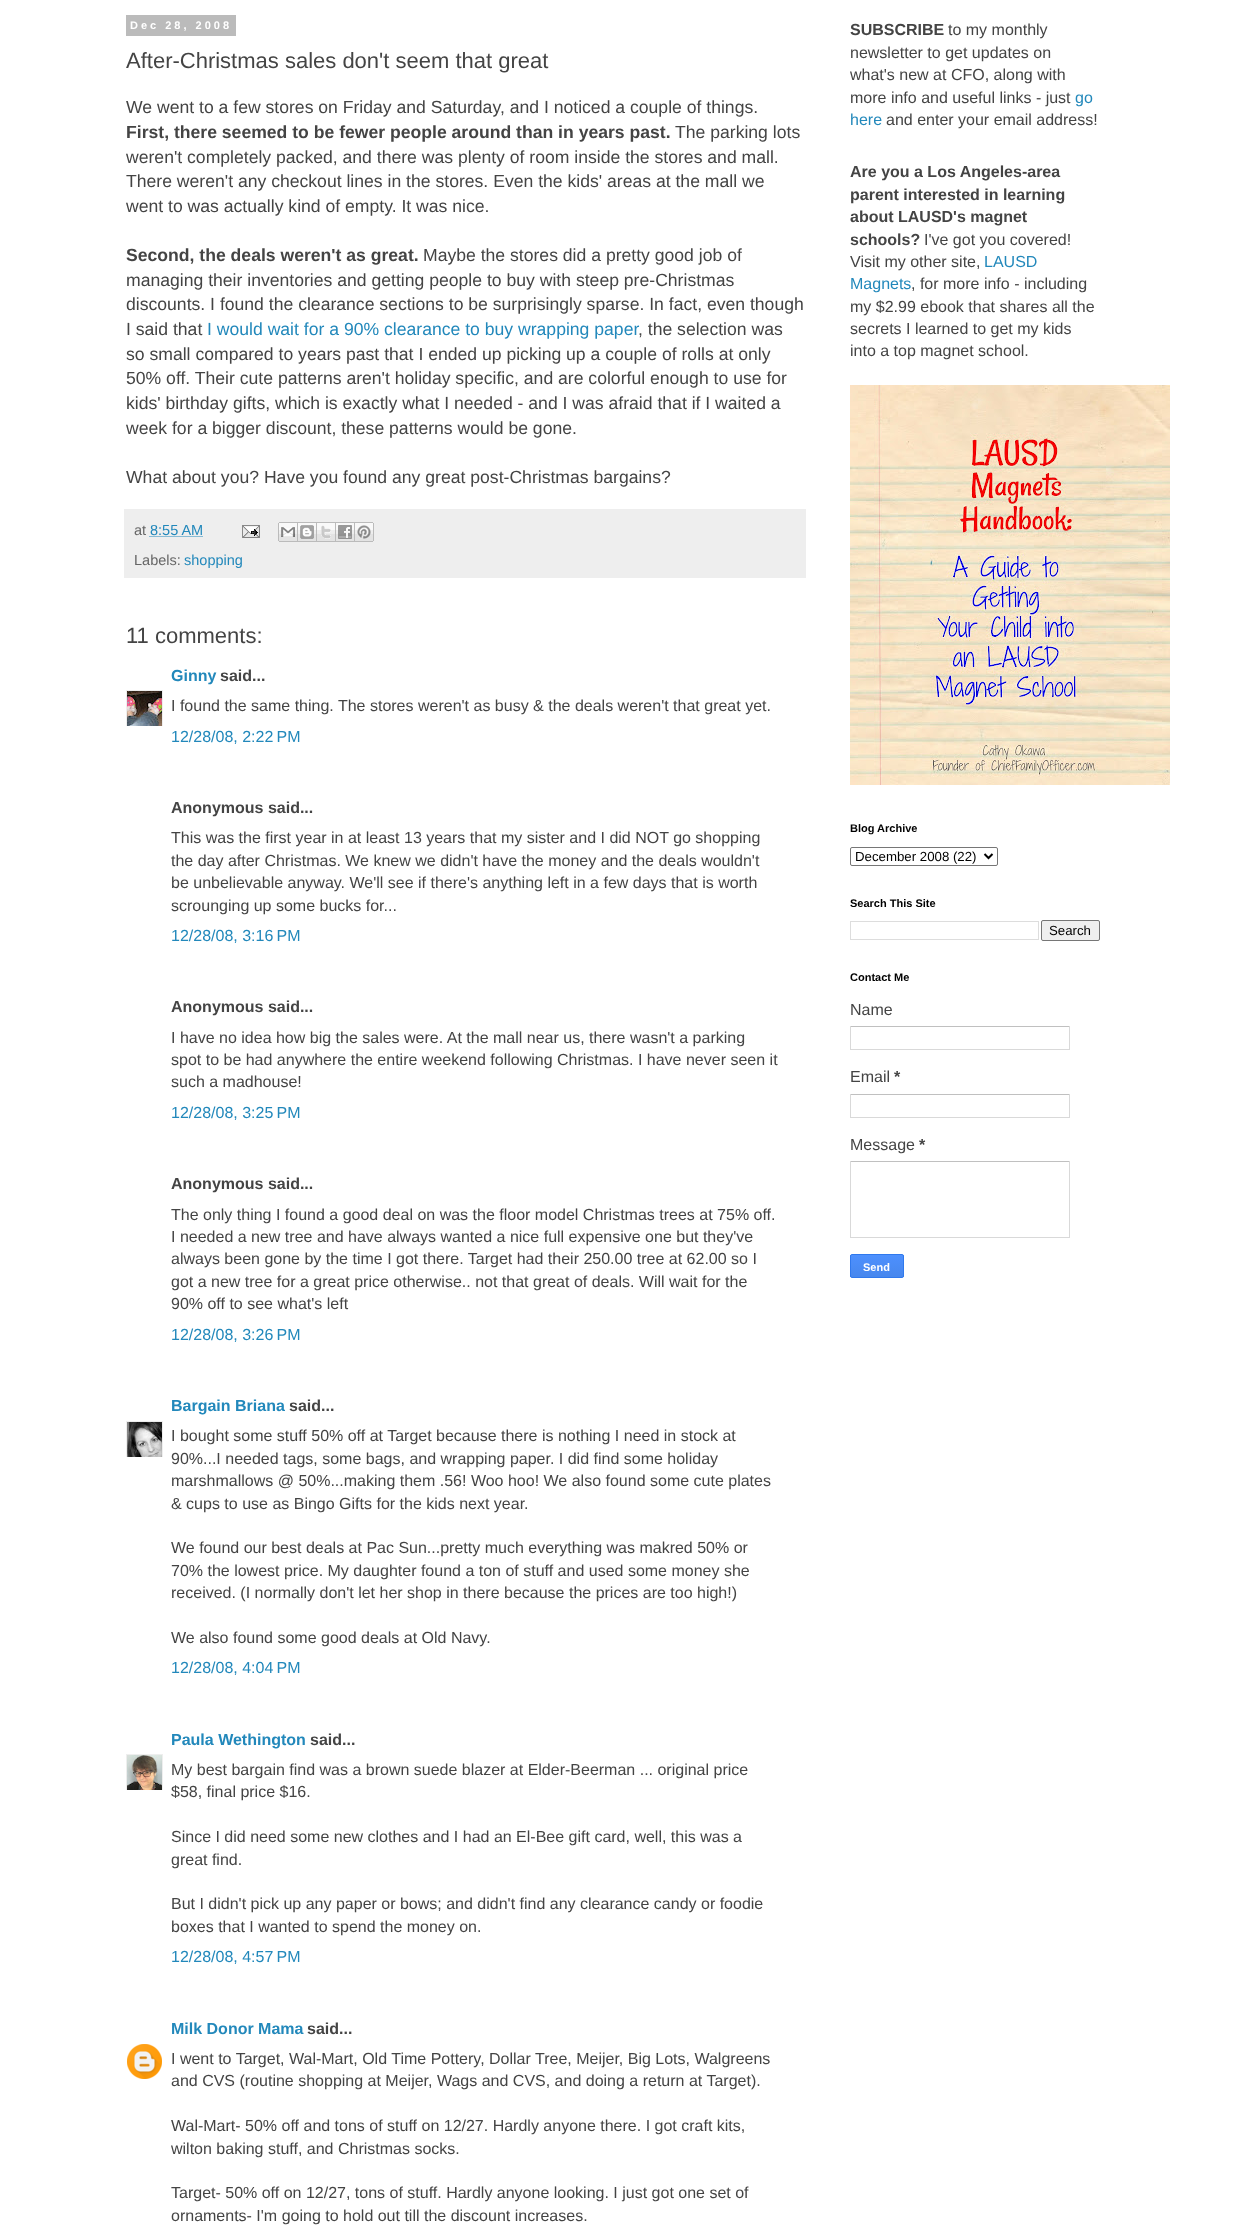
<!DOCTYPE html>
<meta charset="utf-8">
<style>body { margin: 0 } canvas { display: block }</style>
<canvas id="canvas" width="1239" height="2238"></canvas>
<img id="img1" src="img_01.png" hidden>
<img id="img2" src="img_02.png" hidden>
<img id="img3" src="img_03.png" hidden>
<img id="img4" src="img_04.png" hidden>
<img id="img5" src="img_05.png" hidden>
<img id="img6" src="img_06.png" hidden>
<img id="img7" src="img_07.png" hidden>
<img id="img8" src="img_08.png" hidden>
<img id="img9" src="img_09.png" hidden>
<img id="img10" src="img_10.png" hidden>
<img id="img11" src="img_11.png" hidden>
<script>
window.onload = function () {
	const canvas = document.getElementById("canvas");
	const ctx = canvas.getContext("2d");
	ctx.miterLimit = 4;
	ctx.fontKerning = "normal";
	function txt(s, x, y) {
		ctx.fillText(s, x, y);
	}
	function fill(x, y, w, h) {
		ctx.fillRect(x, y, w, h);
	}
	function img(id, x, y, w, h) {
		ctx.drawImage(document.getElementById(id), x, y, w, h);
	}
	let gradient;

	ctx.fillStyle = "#FFFFFF";
	fill(0, 0, 1239, 2238);
	ctx.fillStyle = "#BBBBBB";
	fill(126, 15, 110, 21);
	ctx.fillStyle = "#EEEEEE";
	fill(124, 509, 682, 69);
	ctx.beginPath();
	ctx.moveTo(149.5, 536.5);
	ctx.lineTo(202.5, 536.5);
	ctx.strokeStyle = "#2288BB";
	ctx.setLineDash([1, 1]);
	ctx.stroke();
	img("img1", 242, 525, 18, 13);
	img("img2", 278, 522, 20, 20);
	img("img3", 298, 522, 19, 20);
	img("img4", 317, 522, 19, 20);
	img("img5", 336, 522, 19, 20);
	img("img6", 355, 522, 19, 20);
	ctx.save();
	ctx.beginPath();
	ctx.rect(126, 690, 37, 36);
	ctx.clip();
	ctx.strokeStyle = "#EEEEEE";
	ctx.setLineDash([]);
	ctx.strokeRect(126.5, 690.5, 36, 36);
	ctx.restore();
	img("img7", 127, 691, 35, 35);
	ctx.save();
	ctx.beginPath();
	ctx.rect(126, 1421, 37, 36);
	ctx.clip();
	ctx.strokeStyle = "#EEEEEE";
	ctx.setLineDash([]);
	ctx.strokeRect(126.5, 1421.5, 36, 36);
	ctx.restore();
	img("img8", 127, 1422, 35, 35);
	ctx.save();
	ctx.beginPath();
	ctx.rect(126, 1754, 37, 36);
	ctx.clip();
	ctx.strokeStyle = "#EEEEEE";
	ctx.setLineDash([]);
	ctx.strokeRect(126.5, 1754.5, 36, 36);
	ctx.restore();
	img("img9", 127, 1755, 35, 35);
	img("img10", 127, 2044, 35, 35);
	img("img11", 850, 385, 320, 400);
	ctx.beginPath();
	ctx.roundRect(850.5, 847.5, 147, 18, 1.5);
	ctx.strokeStyle = "#767676";
	ctx.setLineDash([]);
	ctx.stroke();
	ctx.beginPath();
	ctx.moveTo(984.5, 854);
	ctx.lineTo(988.5, 858);
	ctx.lineTo(992.5, 854);
	ctx.strokeStyle = "#000000";
	ctx.lineWidth = 2;
	ctx.stroke();
	ctx.strokeStyle = "#DDDDDD";
	ctx.lineWidth = 1;
	ctx.strokeRect(850.5, 921.5, 188, 18);
	ctx.fillStyle = "#EFEFEF";
	ctx.beginPath();
	ctx.roundRect(1041.5, 920.5, 58, 20, 1.5);
	ctx.fill();
	ctx.strokeStyle = "#767676";
	ctx.stroke();
	ctx.fillStyle = "#C0C0C0";
	fill(850, 1026, 220, 1);
	ctx.fillStyle = "#D9D9D9";
	fill(1069, 1026, 1, 24);
	fill(850, 1049, 220, 1);
	fill(850, 1026, 1, 24);
	ctx.fillStyle = "#C0C0C0";
	fill(850, 1094, 220, 1);
	ctx.fillStyle = "#D9D9D9";
	fill(1069, 1094, 1, 24);
	fill(850, 1117, 220, 1);
	fill(850, 1094, 1, 24);
	ctx.fillStyle = "#C0C0C0";
	fill(850, 1161, 220, 1);
	ctx.fillStyle = "#D9D9D9";
	fill(1069, 1161, 1, 77);
	fill(850, 1237, 220, 1);
	fill(850, 1161, 1, 77);
	ctx.save();
	ctx.beginPath();
	ctx.roundRect(850, 1254, 54, 24, 2);
	ctx.clip();
	gradient = ctx.createLinearGradient(877, 1255, 877, 1277);
	gradient.addColorStop(0, "#4D90FE");
	gradient.addColorStop(1, "#4787ED");
	ctx.fillStyle = gradient;
	fill(850, 1255, 54, 22);
	ctx.restore();
	ctx.beginPath();
	ctx.roundRect(850.5, 1254.5, 53, 23, 1.5);
	ctx.strokeStyle = "#3079ED";
	ctx.stroke();
	ctx.letterSpacing = "3px";
	ctx.font = "bold 11px Liberation Sans";
	ctx.fillStyle = "#FFFFFF";
	txt("Dec 28, 2008", 130, 29);
	ctx.letterSpacing = "0px";
	ctx.font = "22px Liberation Sans";
	ctx.fillStyle = "#444444";
	txt("After-Christmas sales don't seem that great", 126, 68);
	ctx.font = "17.6px Liberation Sans";
	txt("We went to a few stores on Friday and Saturday, and I noticed a couple of things.", 126, 113);
	ctx.font = "bold 17.6px Liberation Sans";
	txt("First, there seemed to be fewer people around than in years past.", 126, 138);
	ctx.font = "17.6px Liberation Sans";
	txt("The parking lots", 675, 138);
	txt("weren't completely packed, and there was plenty of room inside the stores and mall.", 126, 163);
	txt("There weren't any checkout lines in the stores. Even the kids' areas at the mall we", 126, 187);
	txt("went to was actually kind of empty. It was nice.", 126, 212);
	ctx.font = "bold 17.6px Liberation Sans";
	txt("Second, the deals weren't as great.", 126, 261);
	ctx.font = "17.6px Liberation Sans";
	txt("Maybe the stores did a pretty good job of", 423, 261);
	txt("managing their inventories and getting people to buy with steep pre-Christmas", 126, 286);
	txt("discounts. I found the clearance sections to be surprisingly sparse. In fact, even though", 126, 310);
	txt("I said that", 126, 335);
	ctx.fillStyle = "#2288BB";
	txt("I would wait for a 90% clearance to buy wrapping paper", 207, 335);
	ctx.fillStyle = "#444444";
	txt(", the selection was", 638, 335);
	txt("so small compared to years past that I ended up picking up a couple of rolls at only", 126, 360);
	txt("50% off. Their cute patterns aren't holiday specific, and are colorful enough to use for", 126, 384);
	txt("kids' birthday gifts, which is exactly what I needed - and I was afraid that if I waited a", 126, 409);
	txt("week for a bigger discount, these patterns would be gone.", 126, 434);
	txt("What about you? Have you found any great post-Christmas bargains?", 126, 483);
	ctx.font = "14.5px Liberation Sans";
	ctx.fillStyle = "#666666";
	txt("at", 134, 535);
	ctx.fillStyle = "#2288BB";
	txt("8:55 AM", 150, 535);
	ctx.fillStyle = "#666666";
	txt("Labels:", 134, 565);
	ctx.fillStyle = "#2288BB";
	txt("shopping", 184, 565);
	ctx.font = "22px Liberation Sans";
	ctx.fillStyle = "#444444";
	txt("11 comments:", 126, 643);
	ctx.font = "bold 16px Liberation Sans";
	ctx.fillStyle = "#2288BB";
	txt("Ginny", 171, 681);
	ctx.fillStyle = "#444444";
	txt("said...", 220, 681);
	ctx.font = "16px Liberation Sans";
	txt("I found the same thing. The stores weren't as busy & the deals weren't that great yet.", 171, 711);
	ctx.fillStyle = "#2288BB";
	txt("12/28/08, 2:22 PM", 171, 742);
	ctx.font = "bold 16px Liberation Sans";
	ctx.fillStyle = "#444444";
	txt("Anonymous said...", 171, 813);
	ctx.font = "16px Liberation Sans";
	txt("This was the first year in at least 13 years that my sister and I did NOT go shopping", 171, 843);
	txt("the day after Christmas. We knew we didn't have the money and the deals wouldn't", 171, 866);
	txt("be unbelievable anyway. We'll see if there's anything left in a few days that is worth", 171, 888);
	txt("scrounging up some bucks for...", 171, 911);
	ctx.fillStyle = "#2288BB";
	txt("12/28/08, 3:16 PM", 171, 941);
	ctx.font = "bold 16px Liberation Sans";
	ctx.fillStyle = "#444444";
	txt("Anonymous said...", 171, 1012);
	ctx.font = "16px Liberation Sans";
	txt("I have no idea how big the sales were. At the mall near us, there wasn't a parking", 171, 1043);
	txt("spot to be had anywhere the entire weekend following Christmas. I have never seen it", 171, 1065);
	txt("such a madhouse!", 171, 1087);
	ctx.fillStyle = "#2288BB";
	txt("12/28/08, 3:25 PM", 171, 1118);
	ctx.font = "bold 16px Liberation Sans";
	ctx.fillStyle = "#444444";
	txt("Anonymous said...", 171, 1189);
	ctx.font = "16px Liberation Sans";
	txt("The only thing I found a good deal on was the floor model Christmas trees at 75% off.", 171, 1220);
	txt("I needed a new tree and have always wanted a nice full expensive one but they've", 171, 1242);
	txt("always been gone by the time I got there. Target had their 250.00 tree at 62.00 so I", 171, 1264);
	txt("got a new tree for a great price otherwise.. not that great of deals. Will wait for the", 171, 1287);
	txt("90% off to see what's left", 171, 1309);
	ctx.fillStyle = "#2288BB";
	txt("12/28/08, 3:26 PM", 171, 1340);
	ctx.font = "bold 16px Liberation Sans";
	txt("Bargain Briana", 171, 1411);
	ctx.fillStyle = "#444444";
	txt("said...", 289, 1411);
	ctx.font = "16px Liberation Sans";
	txt("I bought some stuff 50% off at Target because there is nothing I need in stock at", 171, 1441);
	txt("90%...I needed tags, some bags, and wrapping paper. I did find some holiday", 171, 1464);
	txt("marshmallows @ 50%...making them .56! Woo hoo! We also found some cute plates", 171, 1486);
	txt("& cups to use as Bingo Gifts for the kids next year.", 171, 1509);
	txt("We found our best deals at Pac Sun...pretty much everything was makred 50% or", 171, 1553);
	txt("70% the lowest price. My daughter found a ton of stuff and used some money she", 171, 1576);
	txt("received. (I normally don't let her shop in there because the prices are too high!)", 171, 1598);
	txt("We also found some good deals at Old Navy.", 171, 1643);
	ctx.fillStyle = "#2288BB";
	txt("12/28/08, 4:04 PM", 171, 1673);
	ctx.font = "bold 16px Liberation Sans";
	txt("Paula Wethington", 171, 1745);
	ctx.fillStyle = "#444444";
	txt("said...", 310, 1745);
	ctx.font = "16px Liberation Sans";
	txt("My best bargain find was a brown suede blazer at Elder-Beerman ... original price", 171, 1775);
	txt("$58, final price $16.", 171, 1797);
	txt("Since I did need some new clothes and I had an El-Bee gift card, well, this was a", 171, 1842);
	txt("great find.", 171, 1865);
	txt("But I didn't pick up any paper or bows; and didn't find any clearance candy or foodie", 171, 1909);
	txt("boxes that I wanted to spend the money on.", 171, 1932);
	ctx.fillStyle = "#2288BB";
	txt("12/28/08, 4:57 PM", 171, 1962);
	ctx.font = "bold 16px Liberation Sans";
	txt("Milk Donor Mama", 171, 2034);
	ctx.fillStyle = "#444444";
	txt("said...", 307, 2034);
	ctx.font = "16px Liberation Sans";
	txt("I went to Target, Wal-Mart, Old Time Pottery, Dollar Tree, Meijer, Big Lots, Walgreens", 171, 2064);
	txt("and CVS (routine shopping at Meijer, Wags and CVS, and doing a return at Target).", 171, 2086);
	txt("Wal-Mart- 50% off and tons of stuff on 12/27. Hardly anyone there. I got craft kits,", 171, 2131);
	txt("wilton baking stuff, and Christmas socks.", 171, 2154);
	txt("Target- 50% off on 12/27, tons of stuff. Hardly anyone looking. I just got one set of", 171, 2198);
	txt("ornaments- I'm going to hold out till the discount increases.", 171, 2221);
	ctx.font = "bold 16px Liberation Sans";
	txt("SUBSCRIBE", 850, 35);
	ctx.font = "16px Liberation Sans";
	txt("to my monthly", 948, 35);
	txt("newsletter to get updates on", 850, 58);
	txt("what's new at CFO, along with", 850, 80);
	txt("more info and useful links - just", 850, 103);
	ctx.fillStyle = "#2288BB";
	txt("go", 1075, 103);
	txt("here", 850, 125);
	ctx.fillStyle = "#444444";
	txt("and enter your email address!", 886, 125);
	ctx.font = "bold 16px Liberation Sans";
	txt("Are you a Los Angeles-area", 850, 177);
	txt("parent interested in learning", 850, 200);
	txt("about LAUSD's magnet", 850, 222);
	txt("schools?", 850, 245);
	ctx.font = "16px Liberation Sans";
	txt("I've got you covered!", 924, 245);
	txt("Visit my other site,", 850, 267);
	ctx.fillStyle = "#2288BB";
	txt("LAUSD", 984, 267);
	txt("Magnets", 850, 289);
	ctx.fillStyle = "#444444";
	txt(", for more info - including", 911, 289);
	txt("my $2.99 ebook that shares all the", 850, 312);
	txt("secrets I learned to get my kids", 850, 334);
	txt("into a top magnet school.", 850, 356);
	ctx.font = "bold 11px Liberation Sans";
	ctx.fillStyle = "#000000";
	txt("Blog Archive", 850, 832);
	ctx.font = "13.25px Liberation Sans";
	txt("December 2008 (22)", 855, 861);
	ctx.font = "bold 11px Liberation Sans";
	txt("Search This Site", 850, 907);
	ctx.font = "13.25px Liberation Sans";
	txt("Search", 1049, 935);
	ctx.font = "bold 11px Liberation Sans";
	txt("Contact Me", 850, 981);
	ctx.font = "16px Liberation Sans";
	ctx.fillStyle = "#444444";
	txt("Name", 850, 1015);
	txt("Email", 850, 1082);
	ctx.font = "bold 16px Liberation Sans";
	txt("*", 894, 1082);
	ctx.font = "16px Liberation Sans";
	txt("Message", 850, 1150);
	ctx.font = "bold 16px Liberation Sans";
	txt("*", 919, 1150);
	ctx.font = "bold 11px Liberation Sans";
	ctx.fillStyle = "#FFFFFF";
	txt("Send", 863, 1271);
};
</script>
